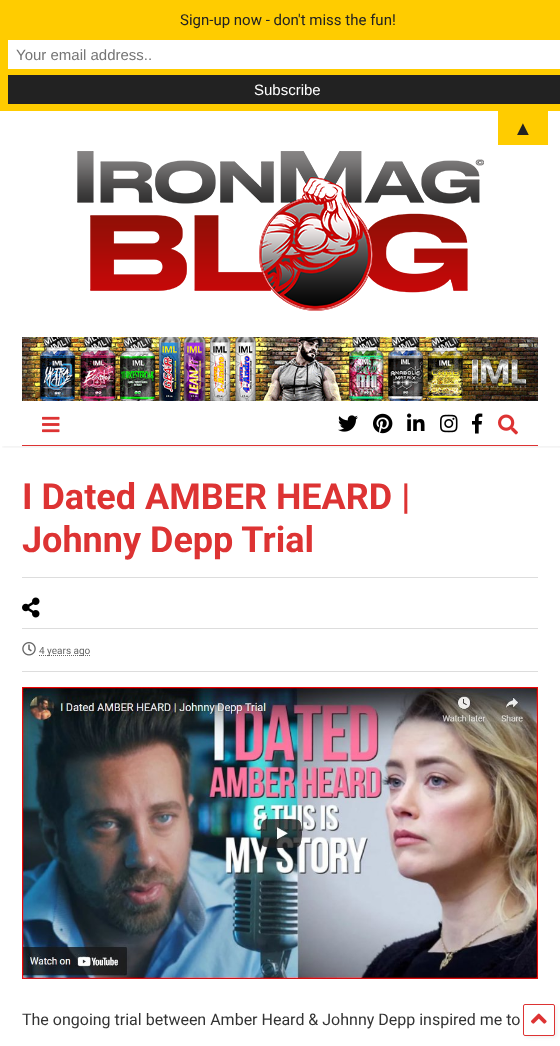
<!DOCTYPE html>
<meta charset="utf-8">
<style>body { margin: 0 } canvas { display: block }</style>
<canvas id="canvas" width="560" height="1046"></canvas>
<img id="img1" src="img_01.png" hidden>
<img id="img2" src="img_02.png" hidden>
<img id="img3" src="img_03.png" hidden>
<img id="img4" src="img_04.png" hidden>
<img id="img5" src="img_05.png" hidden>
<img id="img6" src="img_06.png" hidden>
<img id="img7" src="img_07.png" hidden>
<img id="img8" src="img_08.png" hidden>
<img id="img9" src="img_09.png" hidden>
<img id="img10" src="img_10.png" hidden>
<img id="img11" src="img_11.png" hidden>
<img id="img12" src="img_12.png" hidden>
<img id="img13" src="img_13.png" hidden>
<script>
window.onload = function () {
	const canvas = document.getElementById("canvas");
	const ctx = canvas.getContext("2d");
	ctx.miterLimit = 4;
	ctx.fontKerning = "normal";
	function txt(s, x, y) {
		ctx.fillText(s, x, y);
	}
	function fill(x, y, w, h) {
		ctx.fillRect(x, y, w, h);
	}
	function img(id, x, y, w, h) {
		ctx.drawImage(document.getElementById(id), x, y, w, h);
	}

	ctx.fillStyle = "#FFFFFF";
	fill(0, 0, 560, 1046);
	ctx.save();
	ctx.beginPath();
	ctx.rect(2, 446, 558, 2);
	ctx.clip();
	ctx.fillStyle = "rgba(0, 0, 0, 0.05)";
	ctx.filter = "blur(1.5px)";
	ctx.beginPath();
	ctx.rect(2, 113, 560, 335);
	ctx.fill();
	ctx.filter = "none";
	ctx.restore();
	ctx.fillStyle = "#FFCC00";
	fill(0, 0, 560, 111);
	ctx.fillStyle = "#FFFFFF";
	fill(8, 40, 552, 29);
	ctx.fillStyle = "#222222";
	fill(8, 75, 552, 29);
	ctx.fillStyle = "#FFCC00";
	fill(498, 111, 50, 34);
	img("img1", 77, 151, 407, 160);
	img("img2", 22, 337, 516, 64);
	img("img3", 42, 416, 18, 17);
	img("img4", 338, 415, 20, 17);
	img("img5", 373, 413, 20, 21);
	img("img6", 407, 413, 18, 18);
	img("img7", 440, 414, 18, 19);
	img("img8", 472, 413, 11, 21);
	img("img9", 498, 414, 20, 21);
	ctx.fillStyle = "#DD3333";
	fill(22, 445, 516, 1);
	ctx.fillStyle = "#DDDDDD";
	fill(22, 628, 516, 1);
	fill(22, 577, 516, 1);
	img("img10", 22, 597, 18, 21);
	fill(22, 671, 516, 1);
	img("img11", 22, 642, 14, 14);
	ctx.beginPath();
	ctx.moveTo(39, 655.5);
	ctx.lineTo(90, 655.5);
	ctx.strokeStyle = "#666666";
	ctx.setLineDash([1, 1]);
	ctx.stroke();
	img("img12", 22, 687, 516, 292);
	ctx.fillStyle = "rgba(0, 0, 0, 0.05)";
	ctx.filter = "blur(1.5px)";
	ctx.beginPath();
	ctx.roundRect(525, 1006, 32, 32, 2);
	ctx.fill();
	ctx.filter = "none";
	ctx.fillStyle = "#FFFFFF";
	ctx.beginPath();
	ctx.roundRect(523.5, 1004.5, 31, 31, 1.5);
	ctx.fill();
	ctx.strokeStyle = "#DD3333";
	ctx.setLineDash([]);
	ctx.stroke();
	img("img13", 531, 1013, 16, 11);
	ctx.font = "15px Roboto";
	ctx.fillStyle = "#222222";
	txt("Sign-up now - don't miss the fun!", 180, 25);
	ctx.font = "15px Liberation Sans";
	ctx.fillStyle = "#757575";
	txt("Your email address..", 16, 60);
	ctx.fillStyle = "#FFFFFF";
	txt("Subscribe", 254, 95);
	ctx.font = "20px Liberation Sans";
	ctx.fillStyle = "#222222";
	txt("▲", 513, 135);
	ctx.font = "bold 36px Roboto";
	ctx.fillStyle = "#DD3333";
	txt("I Dated AMBER HEARD |", 22, 509);
	txt("Johnny Depp Trial", 22, 552);
	ctx.font = "10px Roboto";
	ctx.fillStyle = "#666666";
	txt("4 years ago", 39, 654);
	ctx.font = "16px Roboto";
	ctx.fillStyle = "#333333";
	txt("The ongoing trial between Amber Heard & Johnny Depp inspired me to", 22, 1025);
};
</script>
